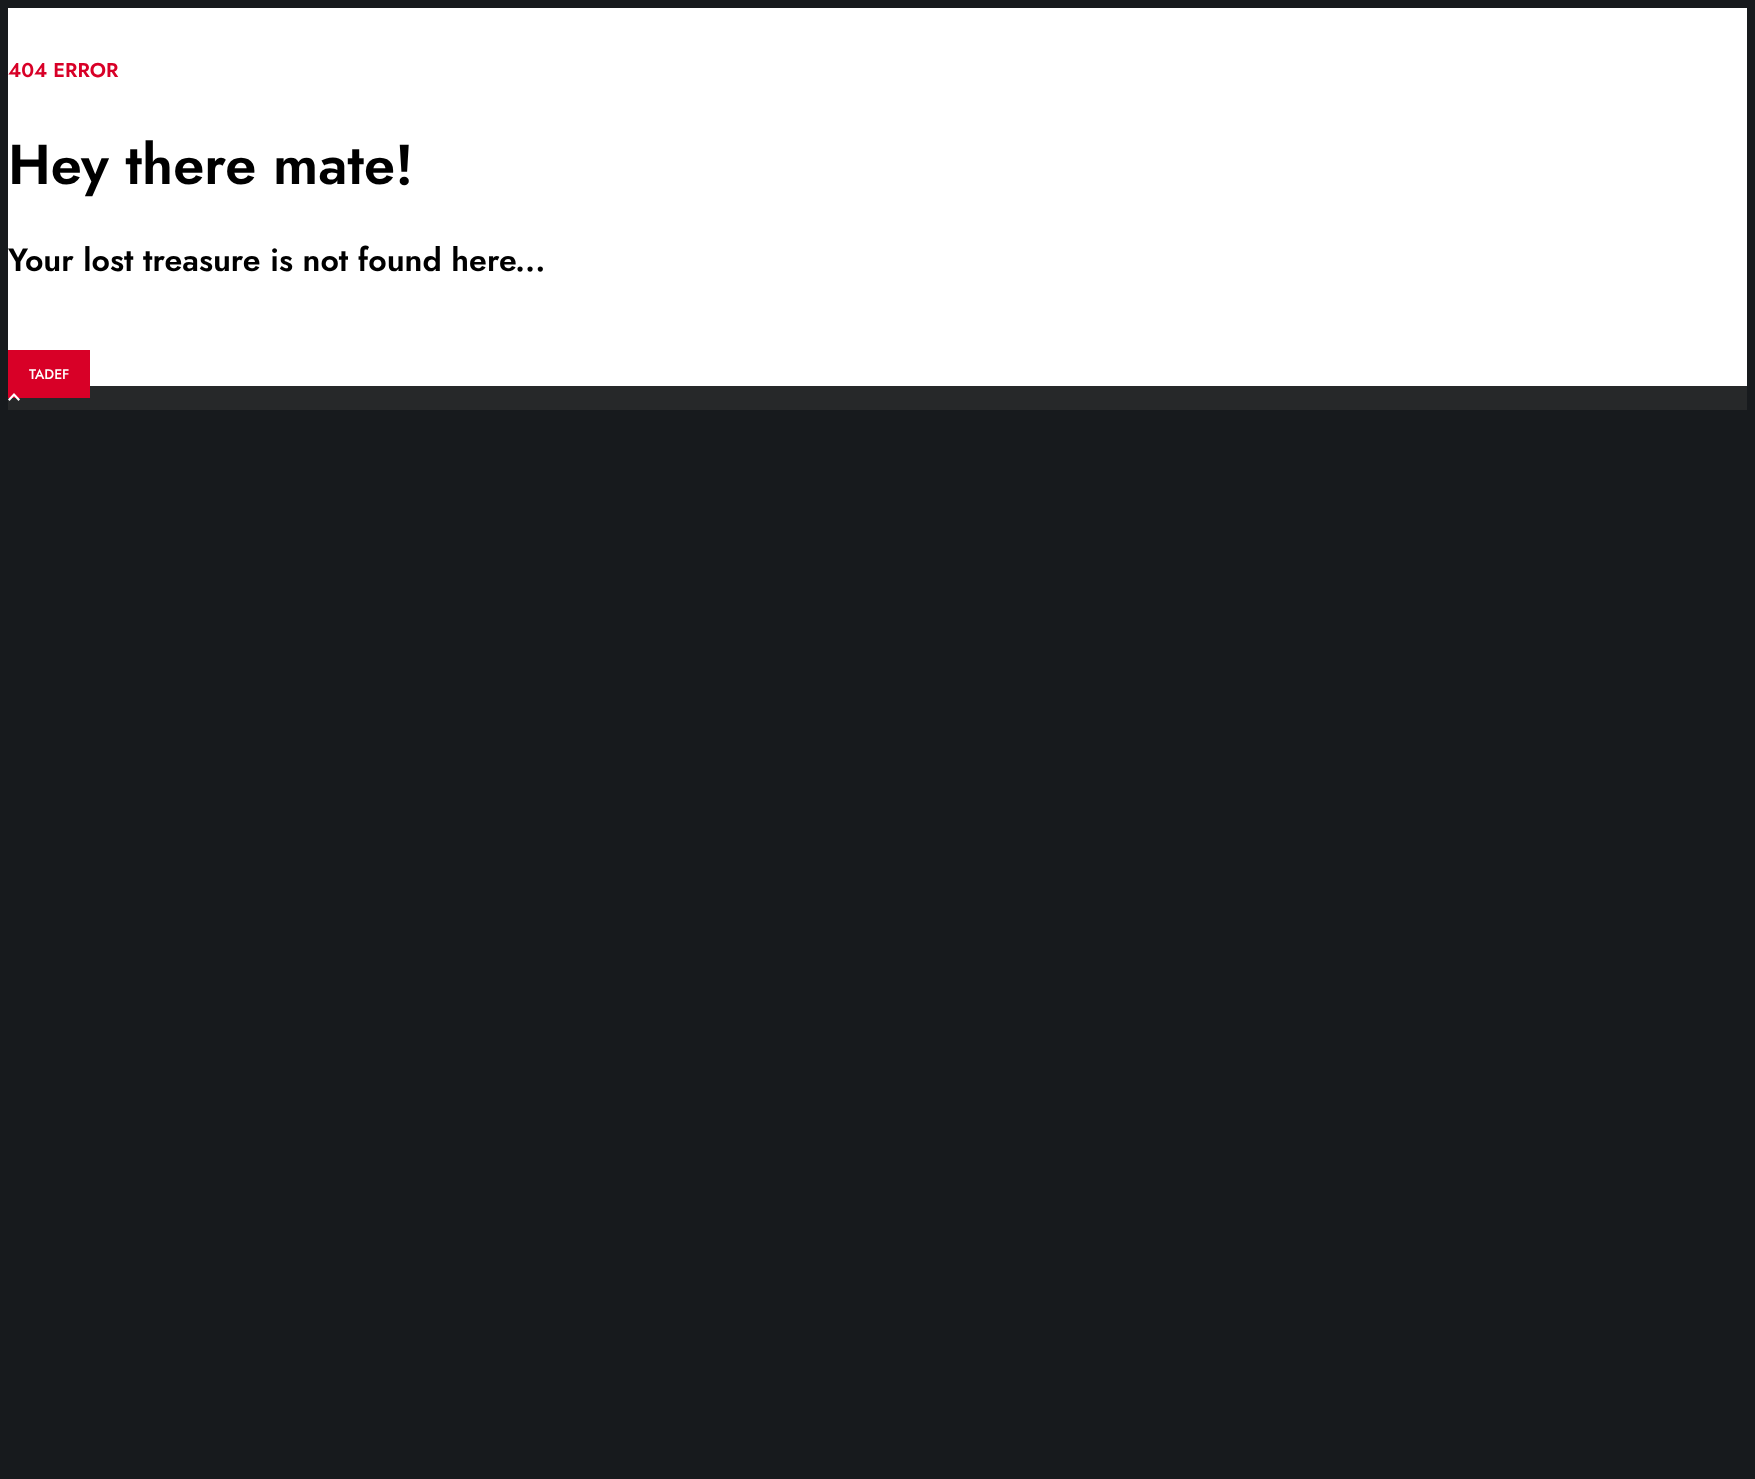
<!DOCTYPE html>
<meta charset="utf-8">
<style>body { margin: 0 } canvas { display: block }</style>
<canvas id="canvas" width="1755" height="1479"></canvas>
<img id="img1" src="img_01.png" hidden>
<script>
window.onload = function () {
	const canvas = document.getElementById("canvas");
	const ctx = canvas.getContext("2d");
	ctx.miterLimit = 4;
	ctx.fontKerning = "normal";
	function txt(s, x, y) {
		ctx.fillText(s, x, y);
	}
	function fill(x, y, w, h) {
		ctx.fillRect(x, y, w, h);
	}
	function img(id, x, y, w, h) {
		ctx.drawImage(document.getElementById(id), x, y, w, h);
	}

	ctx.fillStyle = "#171A1D";
	fill(0, 0, 1755, 1479);
	ctx.fillStyle = "#FFFFFF";
	fill(8, 8, 1739, 378);
	ctx.fillStyle = "#262829";
	fill(8, 386, 1739, 24);
	ctx.fillStyle = "#D80027";
	fill(8, 350, 82, 48);
	img("img1", 8, 393, 12, 8);
	ctx.font = "600 20px Jost";
	txt("404 ERROR", 8, 77);
	ctx.font = "600 56px Jost";
	ctx.fillStyle = "#000000";
	txt("Hey there mate!", 8, 184);
	ctx.font = "600 32px Jost";
	txt("Your lost treasure is not found here...", 8, 271);
	ctx.font = "500 14px Jost";
	ctx.fillStyle = "#FFFFFF";
	txt("TADEF", 29, 379);
};
</script>
